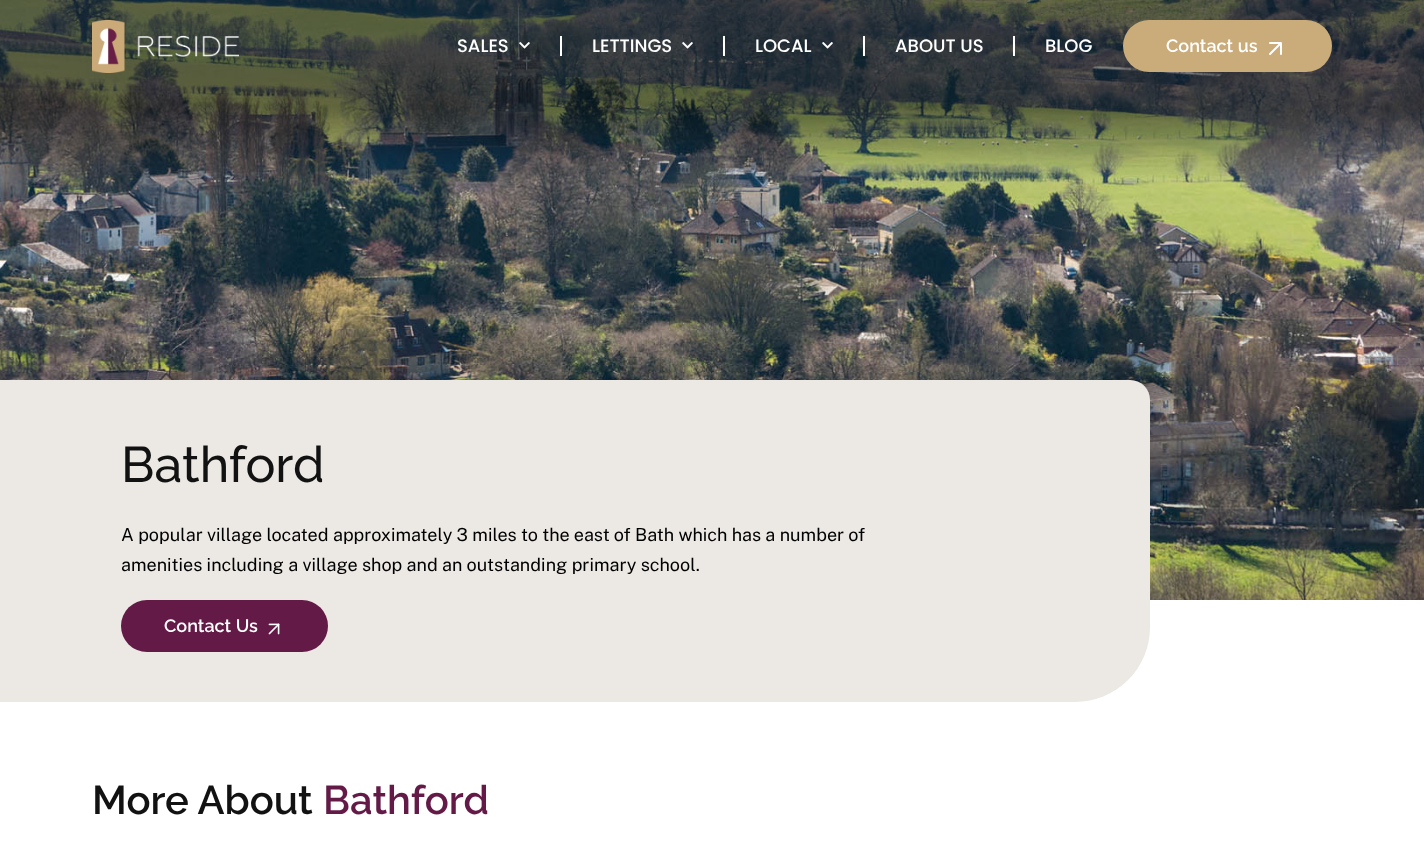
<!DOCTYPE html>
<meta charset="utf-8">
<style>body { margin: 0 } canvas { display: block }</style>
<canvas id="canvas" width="1424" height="868"></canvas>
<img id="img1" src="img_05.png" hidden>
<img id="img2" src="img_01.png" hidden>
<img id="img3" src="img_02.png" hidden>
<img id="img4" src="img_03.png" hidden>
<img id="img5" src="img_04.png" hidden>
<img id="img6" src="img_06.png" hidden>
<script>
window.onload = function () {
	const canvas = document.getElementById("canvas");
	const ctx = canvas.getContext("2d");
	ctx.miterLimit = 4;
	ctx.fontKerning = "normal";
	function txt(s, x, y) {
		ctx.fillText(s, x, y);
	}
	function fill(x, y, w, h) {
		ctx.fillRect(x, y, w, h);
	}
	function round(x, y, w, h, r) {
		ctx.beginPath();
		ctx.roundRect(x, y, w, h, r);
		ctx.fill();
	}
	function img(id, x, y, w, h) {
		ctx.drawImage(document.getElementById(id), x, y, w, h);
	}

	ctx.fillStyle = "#FFFFFF";
	fill(0, 0, 1424, 868);
	img("img1", 0, 0, 1424, 600);
	img("img2", 92, 20, 147, 53);
	fill(560, 36, 2, 20);
	img("img3", 519, 42, 11, 7);
	fill(723, 36, 2, 20);
	img("img4", 682, 42, 11, 7);
	fill(863, 36, 2, 20);
	img("img5", 822, 42, 11, 7);
	fill(1013, 36, 2, 20);
	ctx.fillStyle = "#CAAB7A";
	round(1123, 20, 209, 52, 26);
	ctx.beginPath();
	ctx.moveTo(1270, 54);
	ctx.lineTo(1281, 43);
	ctx.moveTo(1270, 43);
	ctx.lineTo(1281, 43);
	ctx.lineTo(1281, 54);
	ctx.strokeStyle = "#FFFFFF";
	ctx.lineWidth = 2;
	ctx.lineCap = "round";
	ctx.lineJoin = "round";
	ctx.stroke();
	ctx.fillStyle = "#ECE8E3";
	ctx.beginPath();
	ctx.roundRect(0, 380, 1150, 322, [0, 20, 75, 0]);
	ctx.fill();
	ctx.fillStyle = "#631A47";
	round(121, 600, 207, 52, 26);
	img("img6", 268, 623, 12, 12);
	ctx.font = "500 18px Poppins";
	ctx.fillStyle = "#FFFFFF";
	txt("SALES", 457, 52);
	txt("LETTINGS", 592, 52);
	txt("LOCAL", 755, 52);
	txt("ABOUT US", 895, 52);
	txt("BLOG", 1045, 52);
	ctx.font = "600 18px Raleway";
	txt("Contact us", 1166, 52);
	ctx.font = "500 50px Raleway";
	ctx.fillStyle = "#121212";
	txt("Bathford", 121, 482);
	ctx.font = "18px Public Sans";
	ctx.fillStyle = "#000000";
	txt("A popular village located approximately 3 miles to the east of Bath which has a number of", 121, 541);
	txt("amenities including a village shop and an outstanding primary school.", 121, 571);
	ctx.font = "600 18px Raleway";
	ctx.fillStyle = "#FFFFFF";
	txt("Contact Us", 164, 632);
	ctx.font = "600 40px Raleway";
	ctx.fillStyle = "#121212";
	txt("More About", 92, 814);
	ctx.fillStyle = "#631A47";
	txt("Bathford", 323, 814);
};
</script>
